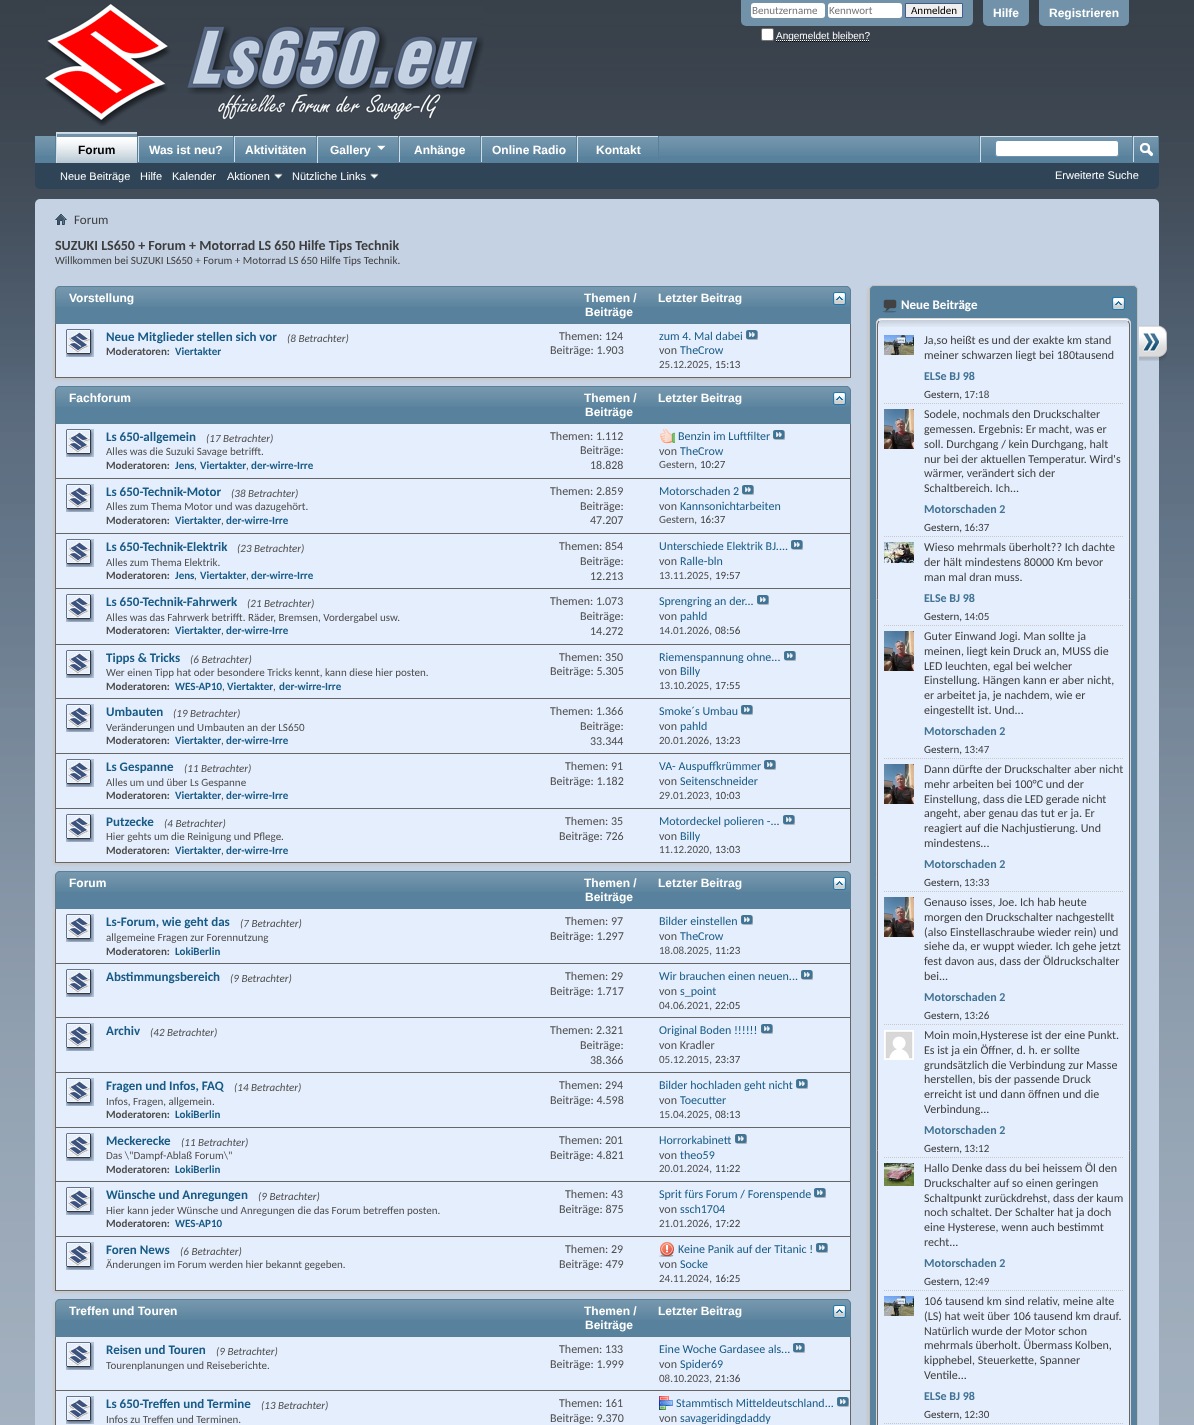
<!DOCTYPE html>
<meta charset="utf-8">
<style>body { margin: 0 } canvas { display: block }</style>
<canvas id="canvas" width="1194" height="1425"></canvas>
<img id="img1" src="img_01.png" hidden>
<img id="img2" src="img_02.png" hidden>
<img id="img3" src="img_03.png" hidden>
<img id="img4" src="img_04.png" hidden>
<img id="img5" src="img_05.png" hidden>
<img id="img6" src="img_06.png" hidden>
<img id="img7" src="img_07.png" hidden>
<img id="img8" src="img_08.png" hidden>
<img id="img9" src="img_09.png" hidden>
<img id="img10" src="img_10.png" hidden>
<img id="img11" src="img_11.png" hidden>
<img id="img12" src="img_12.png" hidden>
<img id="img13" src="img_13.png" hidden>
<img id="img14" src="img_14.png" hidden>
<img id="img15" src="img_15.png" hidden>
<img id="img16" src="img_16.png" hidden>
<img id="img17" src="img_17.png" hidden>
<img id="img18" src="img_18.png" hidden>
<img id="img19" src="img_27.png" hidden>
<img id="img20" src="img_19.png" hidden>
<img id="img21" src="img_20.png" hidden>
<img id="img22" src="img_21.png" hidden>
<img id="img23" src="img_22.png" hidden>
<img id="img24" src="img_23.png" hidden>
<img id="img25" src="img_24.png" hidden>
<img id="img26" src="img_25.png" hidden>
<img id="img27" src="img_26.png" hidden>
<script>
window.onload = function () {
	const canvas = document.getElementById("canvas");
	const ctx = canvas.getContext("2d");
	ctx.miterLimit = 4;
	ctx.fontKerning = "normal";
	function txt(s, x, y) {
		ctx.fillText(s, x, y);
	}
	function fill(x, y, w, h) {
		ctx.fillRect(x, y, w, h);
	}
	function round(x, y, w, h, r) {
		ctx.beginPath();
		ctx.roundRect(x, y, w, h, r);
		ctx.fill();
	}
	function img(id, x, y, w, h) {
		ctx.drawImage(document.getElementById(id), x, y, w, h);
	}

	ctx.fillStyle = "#FFFFFF";
	fill(0, 0, 1194, 1425);
	img("img1", 0, 0, 1194, 1425);
	img("img2", 45, 3, 439, 123);
	ctx.fillStyle = "#7192A8";
	ctx.beginPath();
	ctx.roundRect(741, 0, 232, 26, [0, 0, 5, 5]);
	ctx.fill();
	ctx.fillStyle = "#FFFFFF";
	round(751, 3, 74, 15, 3);
	round(828, 3, 74, 15, 3);
	ctx.fillStyle = "#EFEFEF";
	ctx.beginPath();
	ctx.rect(905.5, 3.5, 57, 14);
	ctx.fill();
	ctx.strokeStyle = "#415D8D";
	ctx.stroke();
	ctx.fillStyle = "#FFFFFF";
	ctx.beginPath();
	ctx.roundRect(761.5, 28.5, 12, 12, 1.5);
	ctx.fill();
	ctx.strokeStyle = "#767676";
	ctx.stroke();
	ctx.beginPath();
	ctx.moveTo(776, 41.5);
	ctx.lineTo(870, 41.5);
	ctx.strokeStyle = "#000000";
	ctx.setLineDash([1, 1]);
	ctx.stroke();
	ctx.beginPath();
	ctx.moveTo(776, 40.5);
	ctx.lineTo(870, 40.5);
	ctx.strokeStyle = "#FFFFFF";
	ctx.stroke();
	ctx.fillStyle = "#7192A8";
	ctx.beginPath();
	ctx.roundRect(983, 0, 46, 26, [0, 0, 5, 5]);
	ctx.fill();
	ctx.beginPath();
	ctx.roundRect(1039, 0, 90, 26, [0, 0, 5, 5]);
	ctx.fill();
	ctx.fillStyle = "#2F4456";
	ctx.beginPath();
	ctx.roundRect(35, 136, 1124, 53, [0, 0, 5, 5]);
	ctx.fill();
	ctx.fillStyle = "#57819C";
	fill(35, 136, 1123, 26);
	img("img3", 35, 136, 1123, 20);
	ctx.fillStyle = "#5A7F97";
	fill(137, 136, 1, 26);
	fill(55, 136, 1, 26);
	fill(233, 136, 1, 27);
	ctx.fillStyle = "#CEDFEB";
	fill(138, 136, 95, 1);
	fill(138, 136, 1, 27);
	ctx.fillStyle = "#5A7F97";
	fill(316, 136, 1, 27);
	ctx.fillStyle = "#CEDFEB";
	fill(234, 136, 82, 1);
	fill(234, 136, 1, 27);
	ctx.fillStyle = "#5A7F97";
	fill(480, 136, 1, 27);
	ctx.fillStyle = "#CEDFEB";
	fill(399, 136, 81, 1);
	fill(399, 136, 1, 27);
	ctx.fillStyle = "#5A7F97";
	fill(576, 136, 1, 27);
	ctx.fillStyle = "#CEDFEB";
	fill(481, 136, 95, 1);
	fill(481, 136, 1, 27);
	ctx.fillStyle = "#5A7F97";
	fill(658, 136, 1, 27);
	ctx.fillStyle = "#CEDFEB";
	fill(577, 136, 81, 1);
	fill(577, 136, 1, 27);
	ctx.fillStyle = "#5A7F97";
	fill(35, 162, 1124, 1);
	ctx.fillStyle = "#7192A8";
	fill(57, 133, 80, 30);
	img("img4", 57, 133, 80, 30);
	ctx.fillStyle = "#CEDFEB";
	fill(56, 132, 81, 1);
	fill(56, 132, 1, 31);
	ctx.fillStyle = "#57819C";
	fill(139, 137, 94, 19);
	img("img5", 139, 137, 94, 20);
	fill(235, 137, 81, 19);
	img("img6", 235, 137, 81, 20);
	ctx.fillStyle = "#5A7F97";
	fill(398, 136, 1, 27);
	ctx.fillStyle = "#57819C";
	fill(318, 137, 80, 26);
	img("img7", 318, 137, 80, 20);
	ctx.fillStyle = "#CEDFEB";
	fill(317, 136, 81, 1);
	fill(317, 136, 1, 27);
	img("img8", 377, 145, 9, 5);
	ctx.fillStyle = "#57819C";
	fill(400, 137, 80, 19);
	img("img7", 400, 137, 80, 20);
	fill(482, 137, 94, 19);
	img("img5", 482, 137, 94, 20);
	fill(578, 137, 80, 19);
	img("img7", 578, 137, 80, 20);
	img("img9", 274, 173, 9, 6);
	img("img9", 370, 173, 9, 6);
	ctx.fillStyle = "#5A7F97";
	fill(979, 136, 1, 26);
	ctx.fillStyle = "#CEDFEB";
	fill(980, 136, 152, 1);
	fill(980, 136, 1, 26);
	ctx.fillStyle = "#FFFFFF";
	ctx.beginPath();
	ctx.roundRect(995.5, 140.5, 123, 16, 2.5);
	ctx.fill();
	ctx.strokeStyle = "#6B91AB";
	ctx.setLineDash([]);
	ctx.stroke();
	ctx.fillStyle = "#5A7F97";
	fill(1158, 136, 1, 26);
	fill(1132, 136, 1, 26);
	ctx.fillStyle = "#CEDFEB";
	fill(1133, 136, 25, 1);
	fill(1133, 136, 1, 26);
	img("img10", 1140, 143, 13, 14);
	ctx.fillStyle = "#C4D2E4";
	round(35, 199, 1124, 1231, 5);
	img("img11", 55, 214, 12, 11);
	ctx.fillStyle = "#C8C8C8";
	ctx.filter = "blur(1px)";
	ctx.beginPath();
	ctx.roundRect(53, 288, 796, 38, 5);
	ctx.fill();
	ctx.filter = "none";
	ctx.fillStyle = "#57819C";
	ctx.beginPath();
	ctx.roundRect(55, 286, 796, 38, [5, 5, 0, 0]);
	ctx.fill();
	img("img12", 55, 287, 796, 20);
	ctx.beginPath();
	ctx.roundRect(55.5, 286.5, 795, 37, [4.5, 4.5, 0, 0]);
	ctx.strokeStyle = "#5A7F97";
	ctx.stroke();
	img("img13", 833, 292, 13, 13);
	ctx.fillStyle = "#C8C8C8";
	ctx.filter = "blur(1px)";
	ctx.beginPath();
	ctx.rect(53, 326, 796, 54);
	ctx.fill();
	ctx.filter = "none";
	ctx.fillStyle = "#E5EEFC";
	fill(56, 324, 794, 53);
	ctx.fillStyle = "#666666";
	fill(850, 324, 1, 54);
	fill(55, 377, 796, 1);
	fill(55, 324, 1, 54);
	img("img14", 66, 329, 28, 28);
	img("img15", 746, 330, 12, 10);
	ctx.fillStyle = "#C8C8C8";
	ctx.filter = "blur(1px)";
	ctx.beginPath();
	ctx.roundRect(53, 388, 796, 38, 5);
	ctx.fill();
	ctx.filter = "none";
	ctx.fillStyle = "#57819C";
	ctx.beginPath();
	ctx.roundRect(55, 386, 796, 38, [5, 5, 0, 0]);
	ctx.fill();
	img("img12", 55, 387, 796, 20);
	ctx.beginPath();
	ctx.roundRect(55.5, 386.5, 795, 37, [4.5, 4.5, 0, 0]);
	ctx.stroke();
	img("img13", 833, 392, 13, 13);
	ctx.fillStyle = "#C8C8C8";
	ctx.filter = "blur(1px)";
	ctx.beginPath();
	ctx.rect(53, 426, 796, 55);
	ctx.fill();
	ctx.filter = "none";
	ctx.fillStyle = "#E5EEFC";
	fill(56, 424, 794, 54);
	ctx.fillStyle = "#666666";
	fill(850, 424, 1, 55);
	fill(55, 478, 796, 1);
	fill(55, 424, 1, 55);
	img("img14", 66, 429, 28, 28);
	img("img16", 660, 429, 15, 15);
	img("img15", 773, 430, 12, 10);
	ctx.fillStyle = "#C8C8C8";
	ctx.filter = "blur(1px)";
	ctx.beginPath();
	ctx.rect(53, 481, 796, 55);
	ctx.fill();
	ctx.filter = "none";
	ctx.fillStyle = "#E5EEFC";
	fill(56, 479, 794, 54);
	ctx.fillStyle = "#666666";
	fill(850, 479, 1, 55);
	fill(55, 533, 796, 1);
	fill(55, 479, 1, 55);
	img("img14", 66, 484, 28, 28);
	img("img15", 742, 485, 12, 10);
	ctx.fillStyle = "#C8C8C8";
	ctx.filter = "blur(1px)";
	ctx.beginPath();
	ctx.rect(53, 536, 796, 55);
	ctx.fill();
	ctx.filter = "none";
	ctx.fillStyle = "#E5EEFC";
	fill(56, 534, 794, 54);
	ctx.fillStyle = "#666666";
	fill(850, 534, 1, 55);
	fill(55, 588, 796, 1);
	fill(55, 534, 1, 55);
	img("img14", 66, 539, 28, 28);
	img("img15", 791, 540, 12, 10);
	ctx.fillStyle = "#C8C8C8";
	ctx.filter = "blur(1px)";
	ctx.beginPath();
	ctx.rect(53, 591, 796, 56);
	ctx.fill();
	ctx.filter = "none";
	ctx.fillStyle = "#E5EEFC";
	fill(56, 589, 794, 55);
	ctx.fillStyle = "#666666";
	fill(850, 589, 1, 56);
	fill(55, 644, 796, 1);
	fill(55, 589, 1, 56);
	img("img14", 66, 594, 28, 28);
	img("img15", 757, 595, 12, 10);
	ctx.fillStyle = "#C8C8C8";
	ctx.filter = "blur(1px)";
	ctx.beginPath();
	ctx.rect(53, 647, 796, 54);
	ctx.fill();
	ctx.filter = "none";
	ctx.fillStyle = "#E5EEFC";
	fill(56, 645, 794, 53);
	ctx.fillStyle = "#666666";
	fill(850, 645, 1, 54);
	fill(55, 698, 796, 1);
	fill(55, 645, 1, 54);
	img("img14", 66, 650, 28, 28);
	img("img15", 784, 651, 12, 10);
	ctx.fillStyle = "#C8C8C8";
	ctx.filter = "blur(1px)";
	ctx.beginPath();
	ctx.rect(53, 701, 796, 55);
	ctx.fill();
	ctx.filter = "none";
	ctx.fillStyle = "#E5EEFC";
	fill(56, 699, 794, 54);
	ctx.fillStyle = "#666666";
	fill(850, 699, 1, 55);
	fill(55, 753, 796, 1);
	fill(55, 699, 1, 55);
	img("img14", 66, 704, 28, 28);
	img("img15", 741, 705, 12, 10);
	ctx.fillStyle = "#C8C8C8";
	ctx.filter = "blur(1px)";
	ctx.beginPath();
	ctx.rect(53, 756, 796, 55);
	ctx.fill();
	ctx.filter = "none";
	ctx.fillStyle = "#E5EEFC";
	fill(56, 754, 794, 54);
	ctx.fillStyle = "#666666";
	fill(850, 754, 1, 55);
	fill(55, 808, 796, 1);
	fill(55, 754, 1, 55);
	img("img14", 66, 759, 28, 28);
	img("img15", 764, 760, 12, 10);
	ctx.fillStyle = "#C8C8C8";
	ctx.filter = "blur(1px)";
	ctx.beginPath();
	ctx.rect(53, 811, 796, 54);
	ctx.fill();
	ctx.filter = "none";
	ctx.fillStyle = "#E5EEFC";
	fill(56, 809, 794, 53);
	ctx.fillStyle = "#666666";
	fill(850, 809, 1, 54);
	fill(55, 862, 796, 1);
	fill(55, 809, 1, 54);
	img("img14", 66, 814, 28, 28);
	img("img15", 783, 815, 12, 10);
	ctx.fillStyle = "#C8C8C8";
	ctx.filter = "blur(1px)";
	ctx.beginPath();
	ctx.roundRect(53, 873, 796, 38, 5);
	ctx.fill();
	ctx.filter = "none";
	ctx.fillStyle = "#57819C";
	ctx.beginPath();
	ctx.roundRect(55, 871, 796, 38, [5, 5, 0, 0]);
	ctx.fill();
	img("img12", 55, 872, 796, 20);
	ctx.beginPath();
	ctx.roundRect(55.5, 871.5, 795, 37, [4.5, 4.5, 0, 0]);
	ctx.stroke();
	img("img13", 833, 877, 13, 13);
	ctx.fillStyle = "#C8C8C8";
	ctx.filter = "blur(1px)";
	ctx.beginPath();
	ctx.rect(53, 911, 796, 55);
	ctx.fill();
	ctx.filter = "none";
	ctx.fillStyle = "#E5EEFC";
	fill(56, 909, 794, 54);
	ctx.fillStyle = "#666666";
	fill(850, 909, 1, 55);
	fill(55, 963, 796, 1);
	fill(55, 909, 1, 55);
	img("img14", 66, 914, 28, 28);
	img("img15", 741, 915, 12, 10);
	ctx.fillStyle = "#C8C8C8";
	ctx.filter = "blur(1px)";
	ctx.beginPath();
	ctx.rect(53, 966, 796, 54);
	ctx.fill();
	ctx.filter = "none";
	ctx.fillStyle = "#E5EEFC";
	fill(56, 964, 794, 53);
	ctx.fillStyle = "#666666";
	fill(850, 964, 1, 54);
	fill(55, 1017, 796, 1);
	fill(55, 964, 1, 54);
	img("img14", 66, 969, 28, 28);
	img("img15", 801, 970, 12, 10);
	ctx.fillStyle = "#C8C8C8";
	ctx.filter = "blur(1px)";
	ctx.beginPath();
	ctx.rect(53, 1020, 796, 55);
	ctx.fill();
	ctx.filter = "none";
	ctx.fillStyle = "#E5EEFC";
	fill(56, 1018, 794, 54);
	ctx.fillStyle = "#666666";
	fill(850, 1018, 1, 55);
	fill(55, 1072, 796, 1);
	fill(55, 1018, 1, 55);
	img("img14", 66, 1023, 28, 28);
	img("img15", 761, 1024, 12, 10);
	ctx.fillStyle = "#C8C8C8";
	ctx.filter = "blur(1px)";
	ctx.beginPath();
	ctx.rect(53, 1075, 796, 55);
	ctx.fill();
	ctx.filter = "none";
	ctx.fillStyle = "#E5EEFC";
	fill(56, 1073, 794, 54);
	ctx.fillStyle = "#666666";
	fill(850, 1073, 1, 55);
	fill(55, 1127, 796, 1);
	fill(55, 1073, 1, 55);
	img("img14", 66, 1078, 28, 28);
	img("img15", 796, 1079, 12, 10);
	ctx.fillStyle = "#C8C8C8";
	ctx.filter = "blur(1px)";
	ctx.beginPath();
	ctx.rect(53, 1130, 796, 54);
	ctx.fill();
	ctx.filter = "none";
	ctx.fillStyle = "#E5EEFC";
	fill(56, 1128, 794, 53);
	ctx.fillStyle = "#666666";
	fill(850, 1128, 1, 54);
	fill(55, 1181, 796, 1);
	fill(55, 1128, 1, 54);
	img("img14", 66, 1133, 28, 28);
	img("img15", 735, 1134, 12, 10);
	ctx.fillStyle = "#C8C8C8";
	ctx.filter = "blur(1px)";
	ctx.beginPath();
	ctx.rect(53, 1184, 796, 55);
	ctx.fill();
	ctx.filter = "none";
	ctx.fillStyle = "#E5EEFC";
	fill(56, 1182, 794, 54);
	ctx.fillStyle = "#666666";
	fill(850, 1182, 1, 55);
	fill(55, 1236, 796, 1);
	fill(55, 1182, 1, 55);
	img("img14", 66, 1187, 28, 28);
	img("img15", 814, 1188, 12, 10);
	ctx.fillStyle = "#C8C8C8";
	ctx.filter = "blur(1px)";
	ctx.beginPath();
	ctx.rect(53, 1239, 796, 54);
	ctx.fill();
	ctx.filter = "none";
	ctx.fillStyle = "#E5EEFC";
	fill(56, 1237, 794, 53);
	ctx.fillStyle = "#666666";
	fill(850, 1237, 1, 54);
	fill(55, 1290, 796, 1);
	fill(55, 1237, 1, 54);
	img("img14", 66, 1242, 28, 28);
	img("img17", 659, 1242, 15, 15);
	img("img15", 816, 1243, 12, 10);
	ctx.fillStyle = "#C8C8C8";
	ctx.filter = "blur(1px)";
	ctx.beginPath();
	ctx.roundRect(53, 1301, 796, 38, 5);
	ctx.fill();
	ctx.filter = "none";
	ctx.fillStyle = "#57819C";
	ctx.beginPath();
	ctx.roundRect(55, 1299, 796, 38, [5, 5, 0, 0]);
	ctx.fill();
	img("img12", 55, 1300, 796, 20);
	ctx.beginPath();
	ctx.roundRect(55.5, 1299.5, 795, 37, [4.5, 4.5, 0, 0]);
	ctx.stroke();
	img("img13", 833, 1305, 13, 13);
	ctx.fillStyle = "#C8C8C8";
	ctx.filter = "blur(1px)";
	ctx.beginPath();
	ctx.rect(53, 1339, 796, 54);
	ctx.fill();
	ctx.filter = "none";
	ctx.fillStyle = "#E5EEFC";
	fill(56, 1337, 794, 53);
	ctx.fillStyle = "#666666";
	fill(850, 1337, 1, 54);
	fill(55, 1390, 796, 1);
	fill(55, 1337, 1, 54);
	img("img14", 66, 1342, 28, 28);
	img("img15", 793, 1343, 12, 10);
	ctx.fillStyle = "#C8C8C8";
	ctx.filter = "blur(1px)";
	ctx.beginPath();
	ctx.rect(53, 1393, 796, 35);
	ctx.fill();
	ctx.filter = "none";
	ctx.fillStyle = "#E5EEFC";
	fill(56, 1391, 794, 34);
	ctx.fillStyle = "#666666";
	fill(850, 1391, 1, 34);
	fill(55, 1391, 1, 34);
	img("img14", 66, 1396, 28, 28);
	img("img18", 659, 1396, 14, 14);
	img("img15", 837, 1397, 12, 10);
	img("img19", 1139, 325, 28, 36);
	ctx.fillStyle = "#C8C8C8";
	ctx.filter = "blur(1px)";
	ctx.beginPath();
	ctx.roundRect(867, 287, 269, 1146, 5);
	ctx.fill();
	ctx.filter = "none";
	ctx.fillStyle = "#57819C";
	ctx.beginPath();
	ctx.roundRect(869.5, 285.5, 268, 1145, 4.5);
	ctx.fill();
	ctx.strokeStyle = "#C1C1C1";
	ctx.stroke();
	img("img20", 882, 299, 15, 14);
	img("img21", 1112, 297, 13, 13);
	ctx.fillStyle = "#E5EEFC";
	ctx.beginPath();
	ctx.roundRect(876.5, 318.5, 254, 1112, 4.5);
	ctx.fill();
	ctx.strokeStyle = "#DADADA";
	ctx.stroke();
	round(877, 319, 253, 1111, 5);
	img("img22", 877, 320, 253, 7);
	ctx.beginPath();
	ctx.moveTo(879, 321);
	ctx.bezierCurveTo(879.5, 320, 881, 319.5, 882, 319.5);
	ctx.lineTo(1125, 319.5);
	ctx.bezierCurveTo(1126, 319.5, 1127.5, 320, 1128, 321);
	ctx.strokeStyle = "#FFFFFF";
	ctx.stroke();
	ctx.beginPath();
	ctx.moveTo(1128, 321);
	ctx.lineTo(1129.5, 324);
	ctx.lineTo(1129.5, 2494);
	ctx.bezierCurveTo(1129.5, 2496.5, 1127.5, 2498.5, 1125.5, 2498.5);
	ctx.lineTo(882, 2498.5);
	ctx.bezierCurveTo(879.5, 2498.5, 877.5, 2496.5, 877.5, 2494);
	ctx.lineTo(877.5, 324);
	ctx.lineTo(879, 321);
	ctx.strokeStyle = "#666666";
	ctx.stroke();
	img("img23", 884, 335, 30, 20);
	ctx.beginPath();
	ctx.moveTo(884, 403.5);
	ctx.lineTo(1123, 403.5);
	ctx.strokeStyle = "#C9C9C9";
	ctx.setLineDash([1, 1]);
	ctx.stroke();
	img("img24", 884, 409, 30, 40);
	ctx.beginPath();
	ctx.moveTo(884, 536.5);
	ctx.lineTo(1123, 536.5);
	ctx.stroke();
	img("img25", 884, 542, 30, 21);
	ctx.beginPath();
	ctx.moveTo(884, 625.5);
	ctx.lineTo(1123, 625.5);
	ctx.stroke();
	img("img24", 884, 631, 30, 40);
	ctx.beginPath();
	ctx.moveTo(884, 758.5);
	ctx.lineTo(1123, 758.5);
	ctx.stroke();
	img("img24", 884, 764, 30, 40);
	ctx.beginPath();
	ctx.moveTo(884, 891.5);
	ctx.lineTo(1123, 891.5);
	ctx.stroke();
	img("img24", 884, 897, 30, 40);
	ctx.beginPath();
	ctx.moveTo(884, 1024.5);
	ctx.lineTo(1123, 1024.5);
	ctx.stroke();
	img("img26", 884, 1030, 30, 30);
	ctx.beginPath();
	ctx.moveTo(884, 1157.5);
	ctx.lineTo(1123, 1157.5);
	ctx.stroke();
	img("img27", 884, 1163, 30, 23);
	ctx.beginPath();
	ctx.moveTo(884, 1290.5);
	ctx.lineTo(1123, 1290.5);
	ctx.stroke();
	img("img23", 884, 1296, 30, 20);
	ctx.beginPath();
	ctx.moveTo(884, 1423.5);
	ctx.lineTo(1123, 1423.5);
	ctx.stroke();
	ctx.font = "11px Carlito";
	ctx.fillStyle = "#777777";
	txt("Benutzername", 752, 14);
	txt("Kennwort", 829, 14);
	ctx.fillStyle = "#000000";
	txt("Anmelden", 911, 14);
	ctx.font = "10px Liberation Sans";
	ctx.fillStyle = "#FFFFFF";
	txt("Angemeldet bleiben?", 776, 39);
	ctx.font = "bold 12px Liberation Sans";
	txt("Hilfe", 993, 17);
	txt("Registrieren", 1049, 17);
	ctx.fillStyle = "#000000";
	txt("Forum", 78, 154);
	ctx.fillStyle = "#FFFFFF";
	txt("Was ist neu?", 149, 154);
	txt("Aktivitäten", 245, 154);
	txt("Gallery", 330, 154);
	txt("Anhänge", 414, 154);
	txt("Online Radio", 492, 154);
	txt("Kontakt", 596, 154);
	ctx.font = "11px Liberation Sans";
	txt("Neue Beiträge", 60, 180);
	txt("Hilfe", 140, 180);
	txt("Kalender", 172, 180);
	txt("Aktionen", 227, 180);
	txt("Nützliche Links", 292, 180);
	txt("Erweiterte Suche", 1055, 179);
	ctx.font = "13px Carlito";
	ctx.fillStyle = "#3E3E3E";
	txt("Forum", 74, 224);
	ctx.font = "bold 14px Carlito";
	txt("SUZUKI LS650 + Forum + Motorrad LS 650 Hilfe Tips Technik", 55, 250);
	ctx.font = "11.05px Carlito";
	txt("Willkommen bei SUZUKI LS650 + Forum + Motorrad LS 650 Hilfe Tips Technik.", 55, 264);
	ctx.font = "bold 12px Liberation Sans";
	ctx.fillStyle = "#FFFFFF";
	txt("Vorstellung", 69, 302);
	txt("Themen /", 584, 302);
	txt("Beiträge", 585, 316);
	txt("Letzter Beitrag", 658, 302);
	ctx.font = "bold 13px Carlito";
	ctx.fillStyle = "#185B87";
	txt("Neue Mitglieder stellen sich vor", 106, 341);
	ctx.font = "italic 11px Carlito";
	ctx.fillStyle = "#4E4E4E";
	txt("(8 Betrachter)", 287, 342);
	ctx.font = "bold 11px Carlito";
	txt("Moderatoren:", 106, 355);
	ctx.fillStyle = "#185B87";
	txt("Viertakter", 175, 355);
	ctx.font = "12px Carlito";
	ctx.fillStyle = "#4E4E4E";
	txt("Themen: 124", 559, 340);
	txt("Beiträge: 1.903", 550, 354);
	ctx.fillStyle = "#185B87";
	txt("zum 4. Mal dabei", 659, 340);
	ctx.fillStyle = "#4E4E4E";
	txt("von", 659, 354);
	ctx.fillStyle = "#185B87";
	txt("TheCrow", 680, 354);
	ctx.font = "11px Carlito";
	ctx.fillStyle = "#4E4E4E";
	txt("25.12.2025,", 659, 368);
	ctx.fillStyle = "#3E3E3E";
	txt("15:13", 715, 368);
	ctx.font = "bold 12px Liberation Sans";
	ctx.fillStyle = "#FFFFFF";
	txt("Fachforum", 69, 402);
	txt("Themen /", 584, 402);
	txt("Beiträge", 585, 416);
	txt("Letzter Beitrag", 658, 402);
	ctx.font = "bold 13px Carlito";
	ctx.fillStyle = "#185B87";
	txt("Ls 650-allgemein", 106, 441);
	ctx.font = "italic 11px Carlito";
	ctx.fillStyle = "#4E4E4E";
	txt("(17 Betrachter)", 206, 442);
	ctx.font = "11px Carlito";
	txt("Alles was die Suzuki Savage betrifft.", 106, 455);
	ctx.font = "bold 11px Carlito";
	txt("Moderatoren:", 106, 469);
	ctx.fillStyle = "#185B87";
	txt("Jens", 175, 469);
	ctx.font = "11px Carlito";
	ctx.fillStyle = "#4E4E4E";
	txt(",", 194, 469);
	ctx.font = "bold 11px Carlito";
	ctx.fillStyle = "#185B87";
	txt("Viertakter", 200, 469);
	ctx.font = "11px Carlito";
	ctx.fillStyle = "#4E4E4E";
	txt(",", 246, 469);
	ctx.font = "bold 11px Carlito";
	ctx.fillStyle = "#185B87";
	txt("der-wirre-Irre", 251, 469);
	ctx.font = "12px Carlito";
	ctx.fillStyle = "#4E4E4E";
	txt("Themen: 1.112", 550, 440);
	txt("Beiträge:", 580, 454);
	txt("18.828", 590, 469);
	ctx.fillStyle = "#185B87";
	txt("Benzin im Luftfilter", 678, 440);
	ctx.fillStyle = "#4E4E4E";
	txt("von", 659, 455);
	ctx.fillStyle = "#185B87";
	txt("TheCrow", 680, 455);
	ctx.font = "11px Carlito";
	ctx.fillStyle = "#4E4E4E";
	txt("Gestern,", 659, 468);
	ctx.fillStyle = "#3E3E3E";
	txt("10:27", 700, 468);
	ctx.font = "bold 13px Carlito";
	ctx.fillStyle = "#185B87";
	txt("Ls 650-Technik-Motor", 106, 496);
	ctx.font = "italic 11px Carlito";
	ctx.fillStyle = "#4E4E4E";
	txt("(38 Betrachter)", 231, 497);
	ctx.font = "11px Carlito";
	txt("Alles zum Thema Motor und was dazugehört.", 106, 510);
	ctx.font = "bold 11px Carlito";
	txt("Moderatoren:", 106, 524);
	ctx.fillStyle = "#185B87";
	txt("Viertakter", 175, 524);
	ctx.font = "11px Carlito";
	ctx.fillStyle = "#4E4E4E";
	txt(",", 221, 524);
	ctx.font = "bold 11px Carlito";
	ctx.fillStyle = "#185B87";
	txt("der-wirre-Irre", 226, 524);
	ctx.font = "12px Carlito";
	ctx.fillStyle = "#4E4E4E";
	txt("Themen: 2.859", 550, 495);
	txt("Beiträge:", 580, 510);
	txt("47.207", 590, 524);
	ctx.fillStyle = "#185B87";
	txt("Motorschaden 2", 659, 495);
	ctx.fillStyle = "#4E4E4E";
	txt("von", 659, 510);
	ctx.fillStyle = "#185B87";
	txt("Kannsonichtarbeiten", 680, 510);
	ctx.font = "11px Carlito";
	ctx.fillStyle = "#4E4E4E";
	txt("Gestern,", 659, 523);
	ctx.fillStyle = "#3E3E3E";
	txt("16:37", 700, 523);
	ctx.font = "bold 13px Carlito";
	ctx.fillStyle = "#185B87";
	txt("Ls 650-Technik-Elektrik", 106, 551);
	ctx.font = "italic 11px Carlito";
	ctx.fillStyle = "#4E4E4E";
	txt("(23 Betrachter)", 237, 552);
	ctx.font = "11px Carlito";
	txt("Alles zum Thema Elektrik.", 106, 566);
	ctx.font = "bold 11px Carlito";
	txt("Moderatoren:", 106, 579);
	ctx.fillStyle = "#185B87";
	txt("Jens", 175, 579);
	ctx.font = "11px Carlito";
	ctx.fillStyle = "#4E4E4E";
	txt(",", 194, 579);
	ctx.font = "bold 11px Carlito";
	ctx.fillStyle = "#185B87";
	txt("Viertakter", 200, 579);
	ctx.font = "11px Carlito";
	ctx.fillStyle = "#4E4E4E";
	txt(",", 246, 579);
	ctx.font = "bold 11px Carlito";
	ctx.fillStyle = "#185B87";
	txt("der-wirre-Irre", 251, 579);
	ctx.font = "12px Carlito";
	ctx.fillStyle = "#4E4E4E";
	txt("Themen: 854", 559, 550);
	txt("Beiträge:", 580, 565);
	txt("12.213", 590, 580);
	ctx.fillStyle = "#185B87";
	txt("Unterschiede Elektrik BJ....", 659, 550);
	ctx.fillStyle = "#4E4E4E";
	txt("von", 659, 565);
	ctx.fillStyle = "#185B87";
	txt("Ralle-bln", 680, 565);
	ctx.font = "11px Carlito";
	ctx.fillStyle = "#4E4E4E";
	txt("13.11.2025,", 659, 579);
	ctx.fillStyle = "#3E3E3E";
	txt("19:57", 715, 579);
	ctx.font = "bold 13px Carlito";
	ctx.fillStyle = "#185B87";
	txt("Ls 650-Technik-Fahrwerk", 106, 606);
	ctx.font = "italic 11px Carlito";
	ctx.fillStyle = "#4E4E4E";
	txt("(21 Betrachter)", 247, 607);
	ctx.font = "11px Carlito";
	txt("Alles was das Fahrwerk betrifft. Räder, Bremsen, Vordergabel usw.", 106, 621);
	ctx.font = "bold 11px Carlito";
	txt("Moderatoren:", 106, 634);
	ctx.fillStyle = "#185B87";
	txt("Viertakter", 175, 634);
	ctx.font = "11px Carlito";
	ctx.fillStyle = "#4E4E4E";
	txt(",", 221, 634);
	ctx.font = "bold 11px Carlito";
	ctx.fillStyle = "#185B87";
	txt("der-wirre-Irre", 226, 634);
	ctx.font = "12px Carlito";
	ctx.fillStyle = "#4E4E4E";
	txt("Themen: 1.073", 550, 605);
	txt("Beiträge:", 580, 620);
	txt("14.272", 590, 635);
	ctx.fillStyle = "#185B87";
	txt("Sprengring an der...", 659, 605);
	ctx.fillStyle = "#4E4E4E";
	txt("von", 659, 620);
	ctx.fillStyle = "#185B87";
	txt("pahld", 680, 620);
	ctx.font = "11px Carlito";
	ctx.fillStyle = "#4E4E4E";
	txt("14.01.2026,", 659, 634);
	ctx.fillStyle = "#3E3E3E";
	txt("08:56", 715, 634);
	ctx.font = "bold 13px Carlito";
	ctx.fillStyle = "#185B87";
	txt("Tipps & Tricks", 106, 662);
	ctx.font = "italic 11px Carlito";
	ctx.fillStyle = "#4E4E4E";
	txt("(6 Betrachter)", 190, 663);
	ctx.font = "11px Carlito";
	txt("Wer einen Tipp hat oder besondere Tricks kennt, kann diese hier posten.", 106, 676);
	ctx.font = "bold 11px Carlito";
	txt("Moderatoren:", 106, 690);
	ctx.fillStyle = "#185B87";
	txt("WES-AP10", 175, 690);
	ctx.font = "11px Carlito";
	ctx.fillStyle = "#4E4E4E";
	txt(",", 222, 690);
	ctx.font = "bold 11px Carlito";
	ctx.fillStyle = "#185B87";
	txt("Viertakter", 227, 690);
	ctx.font = "11px Carlito";
	ctx.fillStyle = "#4E4E4E";
	txt(",", 273, 690);
	ctx.font = "bold 11px Carlito";
	ctx.fillStyle = "#185B87";
	txt("der-wirre-Irre", 279, 690);
	ctx.font = "12px Carlito";
	ctx.fillStyle = "#4E4E4E";
	txt("Themen: 350", 559, 661);
	txt("Beiträge: 5.305", 550, 675);
	ctx.fillStyle = "#185B87";
	txt("Riemenspannung ohne...", 659, 661);
	ctx.fillStyle = "#4E4E4E";
	txt("von", 659, 675);
	ctx.fillStyle = "#185B87";
	txt("Billy", 680, 675);
	ctx.font = "11px Carlito";
	ctx.fillStyle = "#4E4E4E";
	txt("13.10.2025,", 659, 689);
	ctx.fillStyle = "#3E3E3E";
	txt("17:55", 715, 689);
	ctx.font = "bold 13px Carlito";
	ctx.fillStyle = "#185B87";
	txt("Umbauten", 106, 716);
	ctx.font = "italic 11px Carlito";
	ctx.fillStyle = "#4E4E4E";
	txt("(19 Betrachter)", 173, 717);
	ctx.font = "11px Carlito";
	txt("Veränderungen und Umbauten an der LS650", 106, 731);
	ctx.font = "bold 11px Carlito";
	txt("Moderatoren:", 106, 744);
	ctx.fillStyle = "#185B87";
	txt("Viertakter", 175, 744);
	ctx.font = "11px Carlito";
	ctx.fillStyle = "#4E4E4E";
	txt(",", 221, 744);
	ctx.font = "bold 11px Carlito";
	ctx.fillStyle = "#185B87";
	txt("der-wirre-Irre", 226, 744);
	ctx.font = "12px Carlito";
	ctx.fillStyle = "#4E4E4E";
	txt("Themen: 1.366", 550, 715);
	txt("Beiträge:", 580, 730);
	txt("33.344", 590, 745);
	ctx.fillStyle = "#185B87";
	txt("Smoke´s Umbau", 659, 715);
	ctx.fillStyle = "#4E4E4E";
	txt("von", 659, 730);
	ctx.fillStyle = "#185B87";
	txt("pahld", 680, 730);
	ctx.font = "11px Carlito";
	ctx.fillStyle = "#4E4E4E";
	txt("20.01.2026,", 659, 744);
	ctx.fillStyle = "#3E3E3E";
	txt("13:23", 715, 744);
	ctx.font = "bold 13px Carlito";
	ctx.fillStyle = "#185B87";
	txt("Ls Gespanne", 106, 771);
	ctx.font = "italic 11px Carlito";
	ctx.fillStyle = "#4E4E4E";
	txt("(11 Betrachter)", 184, 772);
	ctx.font = "11px Carlito";
	txt("Alles um und über Ls Gespanne", 106, 786);
	ctx.font = "bold 11px Carlito";
	txt("Moderatoren:", 106, 799);
	ctx.fillStyle = "#185B87";
	txt("Viertakter", 175, 799);
	ctx.font = "11px Carlito";
	ctx.fillStyle = "#4E4E4E";
	txt(",", 221, 799);
	ctx.font = "bold 11px Carlito";
	ctx.fillStyle = "#185B87";
	txt("der-wirre-Irre", 226, 799);
	ctx.font = "12px Carlito";
	ctx.fillStyle = "#4E4E4E";
	txt("Themen: 91", 565, 770);
	txt("Beiträge: 1.182", 550, 785);
	ctx.fillStyle = "#185B87";
	txt("VA- Auspuffkrümmer", 659, 770);
	ctx.fillStyle = "#4E4E4E";
	txt("von", 659, 785);
	ctx.fillStyle = "#185B87";
	txt("Seitenschneider", 680, 785);
	ctx.font = "11px Carlito";
	ctx.fillStyle = "#4E4E4E";
	txt("29.01.2023,", 659, 799);
	ctx.fillStyle = "#3E3E3E";
	txt("10:03", 715, 799);
	ctx.font = "bold 13px Carlito";
	ctx.fillStyle = "#185B87";
	txt("Putzecke", 106, 826);
	ctx.font = "italic 11px Carlito";
	ctx.fillStyle = "#4E4E4E";
	txt("(4 Betrachter)", 164, 827);
	ctx.font = "11px Carlito";
	txt("Hier gehts um die Reinigung und Pflege.", 106, 840);
	ctx.font = "bold 11px Carlito";
	txt("Moderatoren:", 106, 854);
	ctx.fillStyle = "#185B87";
	txt("Viertakter", 175, 854);
	ctx.font = "11px Carlito";
	ctx.fillStyle = "#4E4E4E";
	txt(",", 221, 854);
	ctx.font = "bold 11px Carlito";
	ctx.fillStyle = "#185B87";
	txt("der-wirre-Irre", 226, 854);
	ctx.font = "12px Carlito";
	ctx.fillStyle = "#4E4E4E";
	txt("Themen: 35", 565, 825);
	txt("Beiträge: 726", 559, 840);
	ctx.fillStyle = "#185B87";
	txt("Motordeckel polieren -...", 659, 825);
	ctx.fillStyle = "#4E4E4E";
	txt("von", 659, 840);
	ctx.fillStyle = "#185B87";
	txt("Billy", 680, 840);
	ctx.font = "11px Carlito";
	ctx.fillStyle = "#4E4E4E";
	txt("11.12.2020,", 659, 853);
	ctx.fillStyle = "#3E3E3E";
	txt("13:03", 715, 853);
	ctx.font = "bold 12px Liberation Sans";
	ctx.fillStyle = "#FFFFFF";
	txt("Forum", 69, 887);
	txt("Themen /", 584, 887);
	txt("Beiträge", 585, 901);
	txt("Letzter Beitrag", 658, 887);
	ctx.font = "bold 13px Carlito";
	ctx.fillStyle = "#185B87";
	txt("Ls-Forum, wie geht das", 106, 926);
	ctx.font = "italic 11px Carlito";
	ctx.fillStyle = "#4E4E4E";
	txt("(7 Betrachter)", 240, 927);
	ctx.font = "11px Carlito";
	txt("allgemeine Fragen zur Forennutzung", 106, 941);
	ctx.font = "bold 11px Carlito";
	txt("Moderatoren:", 106, 955);
	ctx.fillStyle = "#185B87";
	txt("LokiBerlin", 175, 955);
	ctx.font = "12px Carlito";
	ctx.fillStyle = "#4E4E4E";
	txt("Themen: 97", 565, 925);
	txt("Beiträge: 1.297", 550, 940);
	ctx.fillStyle = "#185B87";
	txt("Bilder einstellen", 659, 925);
	ctx.fillStyle = "#4E4E4E";
	txt("von", 659, 940);
	ctx.fillStyle = "#185B87";
	txt("TheCrow", 680, 940);
	ctx.font = "11px Carlito";
	ctx.fillStyle = "#4E4E4E";
	txt("18.08.2025,", 659, 954);
	ctx.fillStyle = "#3E3E3E";
	txt("11:23", 715, 954);
	ctx.font = "bold 13px Carlito";
	ctx.fillStyle = "#185B87";
	txt("Abstimmungsbereich", 106, 981);
	ctx.font = "italic 11px Carlito";
	ctx.fillStyle = "#4E4E4E";
	txt("(9 Betrachter)", 230, 982);
	ctx.font = "12px Carlito";
	txt("Themen: 29", 565, 980);
	txt("Beiträge: 1.717", 550, 995);
	ctx.fillStyle = "#185B87";
	txt("Wir brauchen einen neuen...", 659, 980);
	ctx.fillStyle = "#4E4E4E";
	txt("von", 659, 995);
	ctx.fillStyle = "#185B87";
	txt("s_point", 680, 995);
	ctx.font = "11px Carlito";
	ctx.fillStyle = "#4E4E4E";
	txt("04.06.2021,", 659, 1009);
	ctx.fillStyle = "#3E3E3E";
	txt("22:05", 715, 1009);
	ctx.font = "bold 13px Carlito";
	ctx.fillStyle = "#185B87";
	txt("Archiv", 106, 1035);
	ctx.font = "italic 11px Carlito";
	ctx.fillStyle = "#4E4E4E";
	txt("(42 Betrachter)", 150, 1036);
	ctx.font = "12px Carlito";
	txt("Themen: 2.321", 550, 1034);
	txt("Beiträge:", 580, 1049);
	txt("38.366", 590, 1064);
	ctx.fillStyle = "#185B87";
	txt("Original Boden !!!!!!", 659, 1034);
	ctx.fillStyle = "#4E4E4E";
	txt("von Kradler", 659, 1049);
	ctx.font = "11px Carlito";
	txt("05.12.2015,", 659, 1063);
	ctx.fillStyle = "#3E3E3E";
	txt("23:37", 715, 1063);
	ctx.font = "bold 13px Carlito";
	ctx.fillStyle = "#185B87";
	txt("Fragen und Infos, FAQ", 106, 1090);
	ctx.font = "italic 11px Carlito";
	ctx.fillStyle = "#4E4E4E";
	txt("(14 Betrachter)", 234, 1091);
	ctx.font = "11px Carlito";
	txt("Infos, Fragen, allgemein.", 106, 1105);
	ctx.font = "bold 11px Carlito";
	txt("Moderatoren:", 106, 1118);
	ctx.fillStyle = "#185B87";
	txt("LokiBerlin", 175, 1118);
	ctx.font = "12px Carlito";
	ctx.fillStyle = "#4E4E4E";
	txt("Themen: 294", 559, 1089);
	txt("Beiträge: 4.598", 550, 1104);
	ctx.fillStyle = "#185B87";
	txt("Bilder hochladen geht nicht", 659, 1089);
	ctx.fillStyle = "#4E4E4E";
	txt("von", 659, 1104);
	ctx.fillStyle = "#185B87";
	txt("Toecutter", 680, 1104);
	ctx.font = "11px Carlito";
	ctx.fillStyle = "#4E4E4E";
	txt("15.04.2025,", 659, 1118);
	ctx.fillStyle = "#3E3E3E";
	txt("08:13", 715, 1118);
	ctx.font = "bold 13px Carlito";
	ctx.fillStyle = "#185B87";
	txt("Meckerecke", 106, 1145);
	ctx.font = "italic 11px Carlito";
	ctx.fillStyle = "#4E4E4E";
	txt("(11 Betrachter)", 181, 1146);
	ctx.font = "11px Carlito";
	txt("Das \\\"Dampf-Ablaß Forum\\\"", 106, 1159);
	ctx.font = "bold 11px Carlito";
	txt("Moderatoren:", 106, 1173);
	ctx.fillStyle = "#185B87";
	txt("LokiBerlin", 175, 1173);
	ctx.font = "12px Carlito";
	ctx.fillStyle = "#4E4E4E";
	txt("Themen: 201", 559, 1144);
	txt("Beiträge: 4.821", 550, 1159);
	ctx.fillStyle = "#185B87";
	txt("Horrorkabinett", 659, 1144);
	ctx.fillStyle = "#4E4E4E";
	txt("von", 659, 1159);
	ctx.fillStyle = "#185B87";
	txt("theo59", 680, 1159);
	ctx.font = "11px Carlito";
	ctx.fillStyle = "#4E4E4E";
	txt("20.01.2024,", 659, 1172);
	ctx.fillStyle = "#3E3E3E";
	txt("11:22", 715, 1172);
	ctx.font = "bold 13px Carlito";
	ctx.fillStyle = "#185B87";
	txt("Wünsche und Anregungen", 106, 1199);
	ctx.font = "italic 11px Carlito";
	ctx.fillStyle = "#4E4E4E";
	txt("(9 Betrachter)", 258, 1200);
	ctx.font = "11px Carlito";
	txt("Hier kann jeder Wünsche und Anregungen die das Forum betreffen posten.", 106, 1214);
	ctx.font = "bold 11px Carlito";
	txt("Moderatoren:", 106, 1227);
	ctx.fillStyle = "#185B87";
	txt("WES-AP10", 175, 1227);
	ctx.font = "12px Carlito";
	ctx.fillStyle = "#4E4E4E";
	txt("Themen: 43", 565, 1198);
	txt("Beiträge: 875", 559, 1213);
	ctx.fillStyle = "#185B87";
	txt("Sprit fürs Forum / Forenspende", 659, 1198);
	ctx.fillStyle = "#4E4E4E";
	txt("von", 659, 1213);
	ctx.fillStyle = "#185B87";
	txt("ssch1704", 680, 1213);
	ctx.font = "11px Carlito";
	ctx.fillStyle = "#4E4E4E";
	txt("21.01.2026,", 659, 1227);
	ctx.fillStyle = "#3E3E3E";
	txt("17:22", 715, 1227);
	ctx.font = "bold 13px Carlito";
	ctx.fillStyle = "#185B87";
	txt("Foren News", 106, 1254);
	ctx.font = "italic 11px Carlito";
	ctx.fillStyle = "#4E4E4E";
	txt("(6 Betrachter)", 180, 1255);
	ctx.font = "11px Carlito";
	txt("Änderungen im Forum werden hier bekannt gegeben.", 106, 1268);
	ctx.font = "12px Carlito";
	txt("Themen: 29", 565, 1253);
	txt("Beiträge: 479", 559, 1268);
	ctx.fillStyle = "#185B87";
	txt("Keine Panik auf der Titanic !", 678, 1253);
	ctx.fillStyle = "#4E4E4E";
	txt("von", 659, 1268);
	ctx.fillStyle = "#185B87";
	txt("Socke", 680, 1268);
	ctx.font = "11px Carlito";
	ctx.fillStyle = "#4E4E4E";
	txt("24.11.2024,", 659, 1282);
	ctx.fillStyle = "#3E3E3E";
	txt("16:25", 715, 1282);
	ctx.font = "bold 12px Liberation Sans";
	ctx.fillStyle = "#FFFFFF";
	txt("Treffen und Touren", 69, 1315);
	txt("Themen /", 584, 1315);
	txt("Beiträge", 585, 1329);
	txt("Letzter Beitrag", 658, 1315);
	ctx.font = "bold 13px Carlito";
	ctx.fillStyle = "#185B87";
	txt("Reisen und Touren", 106, 1354);
	ctx.font = "italic 11px Carlito";
	ctx.fillStyle = "#4E4E4E";
	txt("(9 Betrachter)", 216, 1355);
	ctx.font = "11px Carlito";
	txt("Tourenplanungen und Reiseberichte.", 106, 1369);
	ctx.font = "12px Carlito";
	txt("Themen: 133", 559, 1353);
	txt("Beiträge: 1.999", 550, 1368);
	ctx.fillStyle = "#185B87";
	txt("Eine Woche Gardasee als...", 659, 1353);
	ctx.fillStyle = "#4E4E4E";
	txt("von", 659, 1368);
	ctx.fillStyle = "#185B87";
	txt("Spider69", 680, 1368);
	ctx.font = "11px Carlito";
	ctx.fillStyle = "#4E4E4E";
	txt("08.10.2023,", 659, 1382);
	ctx.fillStyle = "#3E3E3E";
	txt("21:36", 715, 1382);
	ctx.font = "bold 13px Carlito";
	ctx.fillStyle = "#185B87";
	txt("Ls 650-Treffen und Termine", 106, 1408);
	ctx.font = "italic 11px Carlito";
	ctx.fillStyle = "#4E4E4E";
	txt("(13 Betrachter)", 261, 1409);
	ctx.font = "11px Carlito";
	txt("Infos zu Treffen und Terminen.", 106, 1423);
	ctx.font = "12px Carlito";
	txt("Themen: 161", 559, 1407);
	txt("Beiträge: 9.370", 550, 1422);
	ctx.fillStyle = "#185B87";
	txt("Stammtisch Mitteldeutschland...", 676, 1407);
	ctx.fillStyle = "#4E4E4E";
	txt("von", 659, 1422);
	ctx.fillStyle = "#185B87";
	txt("savageridingdaddy", 680, 1422);
	ctx.font = "bold 13px Carlito";
	ctx.fillStyle = "#FFFFFF";
	txt("Neue Beiträge", 901, 309);
	ctx.font = "12px Carlito";
	ctx.fillStyle = "#3E3E3E";
	txt("Ja,so heißt es und der exakte km stand", 924, 344);
	txt("meiner schwarzen liegt bei 180tausend", 924, 359);
	ctx.font = "bold 12px Carlito";
	ctx.fillStyle = "#417394";
	txt("ELSe BJ 98", 924, 380);
	ctx.font = "11px Carlito";
	ctx.fillStyle = "#333333";
	txt("Gestern,", 924, 398);
	ctx.fillStyle = "#3E3E3E";
	txt("17:18", 964, 398);
	ctx.font = "12px Carlito";
	txt("Sodele, nochmals den Druckschalter", 924, 418);
	txt("gemessen. Ergebnis: Er macht, was er", 924, 433);
	txt("soll. Durchgang / kein Durchgang, halt", 924, 448);
	txt("nur bei der aktuellen Temperatur. Wird's", 924, 463);
	txt("wärmer, verändert sich der", 924, 477);
	txt("Schaltbereich. Ich...", 924, 492);
	ctx.font = "bold 12px Carlito";
	ctx.fillStyle = "#417394";
	txt("Motorschaden 2", 924, 513);
	ctx.font = "11px Carlito";
	ctx.fillStyle = "#333333";
	txt("Gestern,", 924, 531);
	ctx.fillStyle = "#3E3E3E";
	txt("16:37", 964, 531);
	ctx.font = "12px Carlito";
	txt("Wieso mehrmals überholt?? Ich dachte", 924, 551);
	txt("der hält mindestens 80000 Km bevor", 924, 566);
	txt("man mal dran muss.", 924, 581);
	ctx.font = "bold 12px Carlito";
	ctx.fillStyle = "#417394";
	txt("ELSe BJ 98", 924, 602);
	ctx.font = "11px Carlito";
	ctx.fillStyle = "#333333";
	txt("Gestern,", 924, 620);
	ctx.fillStyle = "#3E3E3E";
	txt("14:05", 964, 620);
	ctx.font = "12px Carlito";
	txt("Guter Einwand Jogi. Man sollte ja", 924, 640);
	txt("meinen, liegt kein Druck an, MUSS die", 924, 655);
	txt("LED leuchten, egal bei welcher", 924, 670);
	txt("Einstellung. Hängen kann er aber nicht,", 924, 684);
	txt("er arbeitet ja, je nachdem, wie er", 924, 699);
	txt("eingestellt ist. Und...", 924, 714);
	ctx.font = "bold 12px Carlito";
	ctx.fillStyle = "#417394";
	txt("Motorschaden 2", 924, 735);
	ctx.font = "11px Carlito";
	ctx.fillStyle = "#333333";
	txt("Gestern,", 924, 753);
	ctx.fillStyle = "#3E3E3E";
	txt("13:47", 964, 753);
	ctx.font = "12px Carlito";
	txt("Dann dürfte der Druckschalter aber nicht", 924, 773);
	txt("mehr arbeiten bei 100°C und der", 924, 788);
	txt("Einstellung, dass die LED gerade nicht", 924, 803);
	txt("angeht, aber genau das tut er ja. Er", 924, 817);
	txt("reagiert auf die Nachjustierung. Und", 924, 832);
	txt("mindestens...", 924, 847);
	ctx.font = "bold 12px Carlito";
	ctx.fillStyle = "#417394";
	txt("Motorschaden 2", 924, 868);
	ctx.font = "11px Carlito";
	ctx.fillStyle = "#333333";
	txt("Gestern,", 924, 886);
	ctx.fillStyle = "#3E3E3E";
	txt("13:33", 964, 886);
	ctx.font = "12px Carlito";
	txt("Genauso isses, Joe. Ich hab heute", 924, 906);
	txt("morgen den Druckschalter nachgestellt", 924, 921);
	txt("(also Einstellaschraube wieder rein) und", 924, 936);
	txt("siehe da, er wuppt wieder. Ich gehe jetzt", 924, 950);
	txt("fest davon aus, dass der Öldruckschalter", 924, 965);
	txt("bei...", 924, 980);
	ctx.font = "bold 12px Carlito";
	ctx.fillStyle = "#417394";
	txt("Motorschaden 2", 924, 1001);
	ctx.font = "11px Carlito";
	ctx.fillStyle = "#333333";
	txt("Gestern,", 924, 1019);
	ctx.fillStyle = "#3E3E3E";
	txt("13:26", 964, 1019);
	ctx.font = "12px Carlito";
	txt("Moin moin,Hysterese ist der eine Punkt.", 924, 1039);
	txt("Es ist ja ein Öffner, d. h. er sollte", 924, 1054);
	txt("grundsätzlich die Verbindung zur Masse", 924, 1069);
	txt("herstellen, bis der passende Druck", 924, 1083);
	txt("erreicht ist und dann öffnen und die", 924, 1098);
	txt("Verbindung...", 924, 1113);
	ctx.font = "bold 12px Carlito";
	ctx.fillStyle = "#417394";
	txt("Motorschaden 2", 924, 1134);
	ctx.font = "11px Carlito";
	ctx.fillStyle = "#333333";
	txt("Gestern,", 924, 1152);
	ctx.fillStyle = "#3E3E3E";
	txt("13:12", 964, 1152);
	ctx.font = "12px Carlito";
	txt("Hallo Denke dass du bei heissem Öl den", 924, 1172);
	txt("Druckschalter auf so einen geringen", 924, 1187);
	txt("Schaltpunkt zurückdrehst, dass der kaum", 924, 1202);
	txt("noch schaltet. Der Schalter hat ja doch", 924, 1216);
	txt("eine Hysterese, wenn auch bestimmt", 924, 1231);
	txt("recht...", 924, 1246);
	ctx.font = "bold 12px Carlito";
	ctx.fillStyle = "#417394";
	txt("Motorschaden 2", 924, 1267);
	ctx.font = "11px Carlito";
	ctx.fillStyle = "#333333";
	txt("Gestern,", 924, 1285);
	ctx.fillStyle = "#3E3E3E";
	txt("12:49", 964, 1285);
	ctx.font = "12px Carlito";
	txt("106 tausend km sind relativ, meine alte", 924, 1305);
	txt("(LS) hat weit über 106 tausend km drauf.", 924, 1320);
	txt("Natürlich wurde der Motor schon", 924, 1335);
	txt("mehrmals überholt. Übermass Kolben,", 924, 1349);
	txt("kipphebel, Steuerkette, Spanner", 924, 1364);
	txt("Ventile...", 924, 1379);
	ctx.font = "bold 12px Carlito";
	ctx.fillStyle = "#417394";
	txt("ELSe BJ 98", 924, 1400);
	ctx.font = "11px Carlito";
	ctx.fillStyle = "#333333";
	txt("Gestern,", 924, 1418);
	ctx.fillStyle = "#3E3E3E";
	txt("12:30", 964, 1418);
};
</script>
